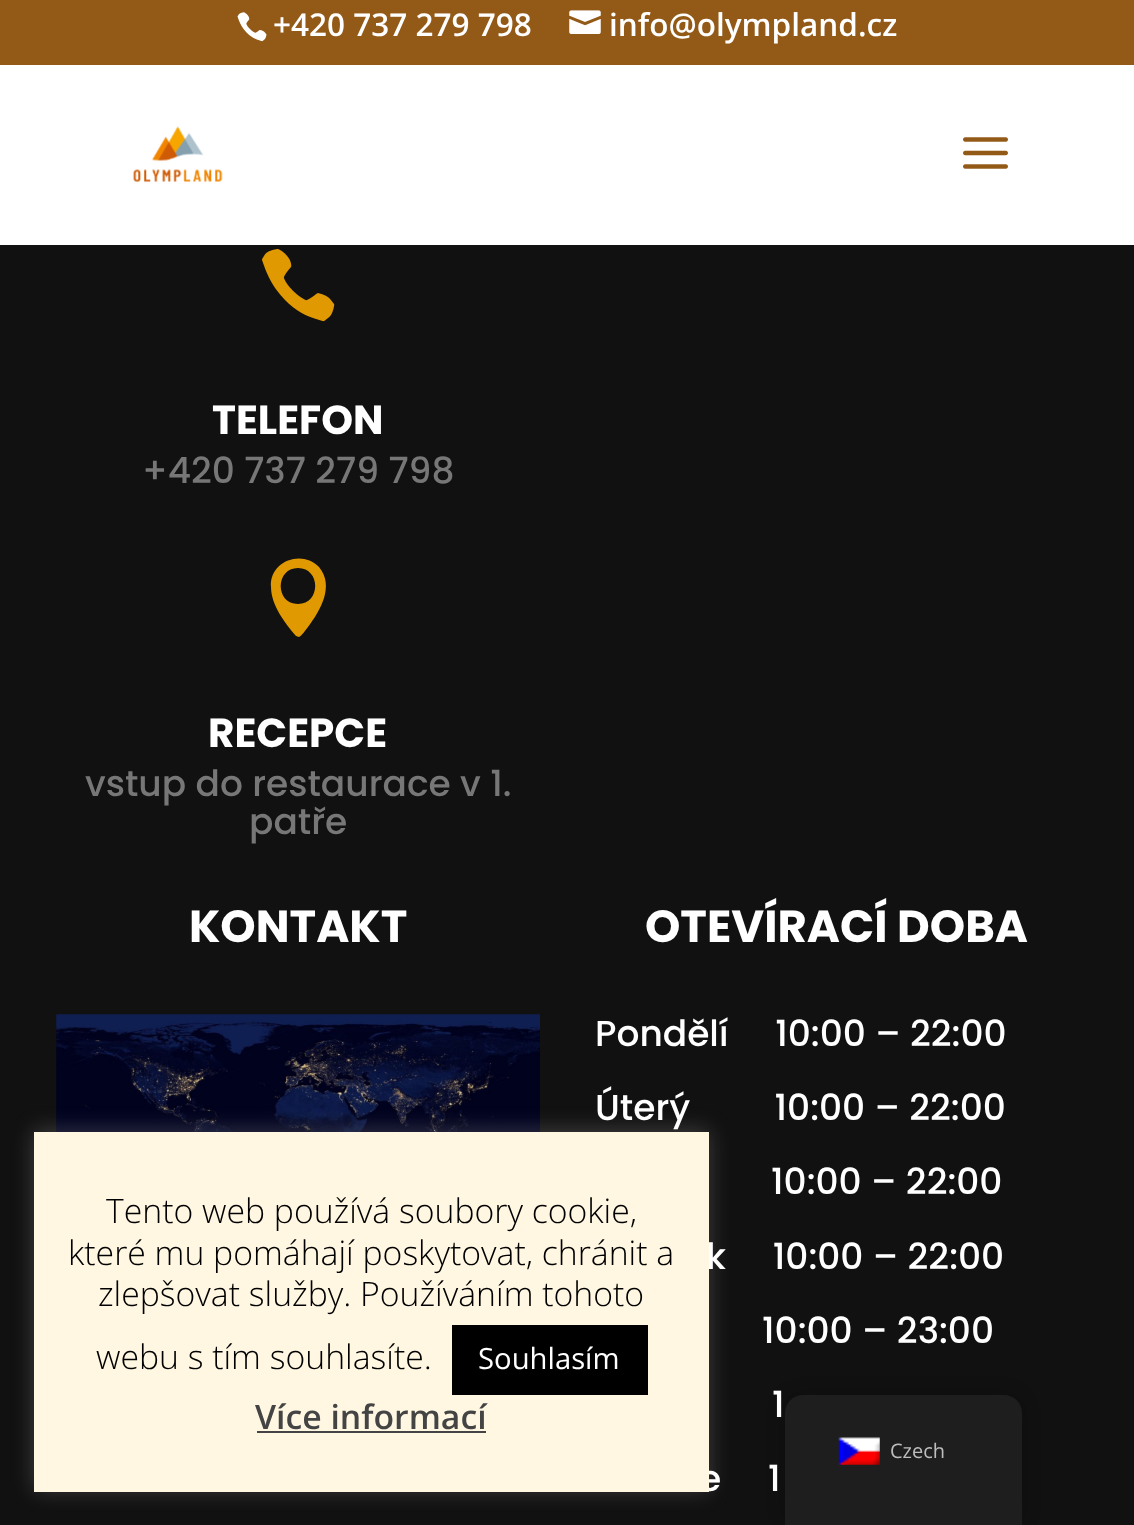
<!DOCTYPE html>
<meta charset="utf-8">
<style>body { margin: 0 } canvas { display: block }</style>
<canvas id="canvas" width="1134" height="1525"></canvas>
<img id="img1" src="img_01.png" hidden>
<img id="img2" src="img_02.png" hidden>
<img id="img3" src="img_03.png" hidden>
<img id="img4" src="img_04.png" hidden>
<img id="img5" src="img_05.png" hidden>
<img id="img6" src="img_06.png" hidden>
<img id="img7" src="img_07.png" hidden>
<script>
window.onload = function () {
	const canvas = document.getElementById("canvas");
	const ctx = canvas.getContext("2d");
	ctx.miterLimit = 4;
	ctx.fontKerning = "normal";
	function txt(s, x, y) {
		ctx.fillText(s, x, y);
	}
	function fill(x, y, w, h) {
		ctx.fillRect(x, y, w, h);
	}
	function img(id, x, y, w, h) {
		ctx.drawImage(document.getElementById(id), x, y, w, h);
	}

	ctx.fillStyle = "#111111";
	fill(0, 0, 1134, 1525);
	ctx.fillStyle = "#935917";
	fill(0, 0, 1134, 65);
	img("img1", 237, 12, 30, 30);
	img("img2", 569, 10, 32, 24);
	ctx.fillStyle = "#FFFFFF";
	fill(0, 65, 1134, 180);
	img("img3", 133, 126, 90, 57);
	img("img4", 963, 137, 45, 32);
	img("img5", 262, 249, 73, 73);
	ctx.fillStyle = "#E09900";
	ctx.beginPath();
	ctx.moveTo(296, 636);
	ctx.lineTo(299, 637);
	ctx.bezierCurveTo(301, 637, 307, 628, 308, 627);
	ctx.bezierCurveTo(320, 611, 335, 586, 319, 567);
	ctx.bezierCurveTo(302, 549, 269, 561, 271, 587);
	ctx.bezierCurveTo(271, 605, 285, 623, 296, 636);
	ctx.closePath();
	ctx.moveTo(298, 568);
	ctx.bezierCurveTo(321, 568, 321, 604, 298, 604);
	ctx.bezierCurveTo(275, 604, 275, 568, 298, 568);
	ctx.closePath();
	ctx.fill();
	img("img6", 56, 1014, 484, 118);
	ctx.fillStyle = "rgba(172, 171, 171, 0.3)";
	ctx.filter = "blur(11px)";
	ctx.beginPath();
	ctx.rect(34, 1130, 675, 360);
	ctx.fill();
	ctx.filter = "none";
	ctx.fillStyle = "rgba(0, 0, 0, 0.25)";
	ctx.filter = "blur(9px)";
	ctx.beginPath();
	ctx.roundRect(785, 1395, 237, 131, 18);
	ctx.fill();
	ctx.filter = "none";
	ctx.fillStyle = "#1E1E1E";
	ctx.beginPath();
	ctx.moveTo(803, 1395);
	ctx.lineTo(1004, 1395);
	ctx.bezierCurveTo(1014, 1395, 1022, 1403, 1022, 1413);
	ctx.lineTo(1022, 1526);
	ctx.lineTo(785, 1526);
	ctx.lineTo(785, 1413);
	ctx.bezierCurveTo(785, 1403, 793, 1395, 803, 1395);
	ctx.closePath();
	ctx.fill();
	img("img7", 838, 1437, 42, 28);
	ctx.font = "600 31.5px Open Sans";
	ctx.fillStyle = "#FFFFFF";
	txt("+420 737 279 798", 273, 36);
	txt("info@olympland.cz", 609, 36);
	ctx.font = "bold 40.5px Poppins";
	txt("TELEFON", 212, 434);
	ctx.font = "500 36px Poppins";
	ctx.fillStyle = "#777777";
	txt("+420 737 279 798", 142, 483);
	ctx.font = "bold 40.5px Poppins";
	ctx.fillStyle = "#FFFFFF";
	txt("RECEPCE", 208, 747);
	ctx.font = "500 36px Poppins";
	ctx.fillStyle = "#777777";
	txt("vstup do restaurace v 1.", 85, 796);
	txt("patře", 249, 834);
	ctx.font = "bold 45px Poppins";
	ctx.fillStyle = "#FFFFFF";
	txt("KONTAKT", 189, 942);
	txt("OTEVÍRACÍ DOBA", 645, 942);
	ctx.font = "500 36px Poppins";
	txt("Pondělí     10:00 – 22:00", 595, 1046);
	txt("Úterý         10:00 – 22:00", 595, 1120);
	txt("10:00 – 22:00", 771, 1194);
	txt("k     10:00 – 22:00", 706, 1269);
	txt("10:00 – 23:00", 762, 1343);
	txt("1", 772, 1417);
	txt("e     1", 699, 1491);
	ctx.fillStyle = "#FFF7E1";
	fill(34, 1132, 675, 360);
	ctx.font = "300 33.75px Open Sans";
	ctx.fillStyle = "#000000";
	txt("Tento web používá soubory cookie,", 106, 1223);
	txt("které mu pomáhají poskytovat, chránit a", 68, 1265);
	txt("zlepšovat služby. Používáním tohoto", 98, 1306);
	txt("webu s tím souhlasíte.", 96, 1369);
	fill(452, 1325, 196, 70);
	ctx.font = "29.25px Open Sans";
	ctx.fillStyle = "#FFFFFF";
	txt("Souhlasím", 478, 1369);
	ctx.font = "600 33.75px Open Sans";
	ctx.fillStyle = "#444444";
	txt("Více informací", 255, 1429);
	fill(257, 1431, 229, 2);
	ctx.font = "20px Open Sans";
	ctx.fillStyle = "#BDBDBD";
	txt("Czech", 890, 1458);
};
</script>
